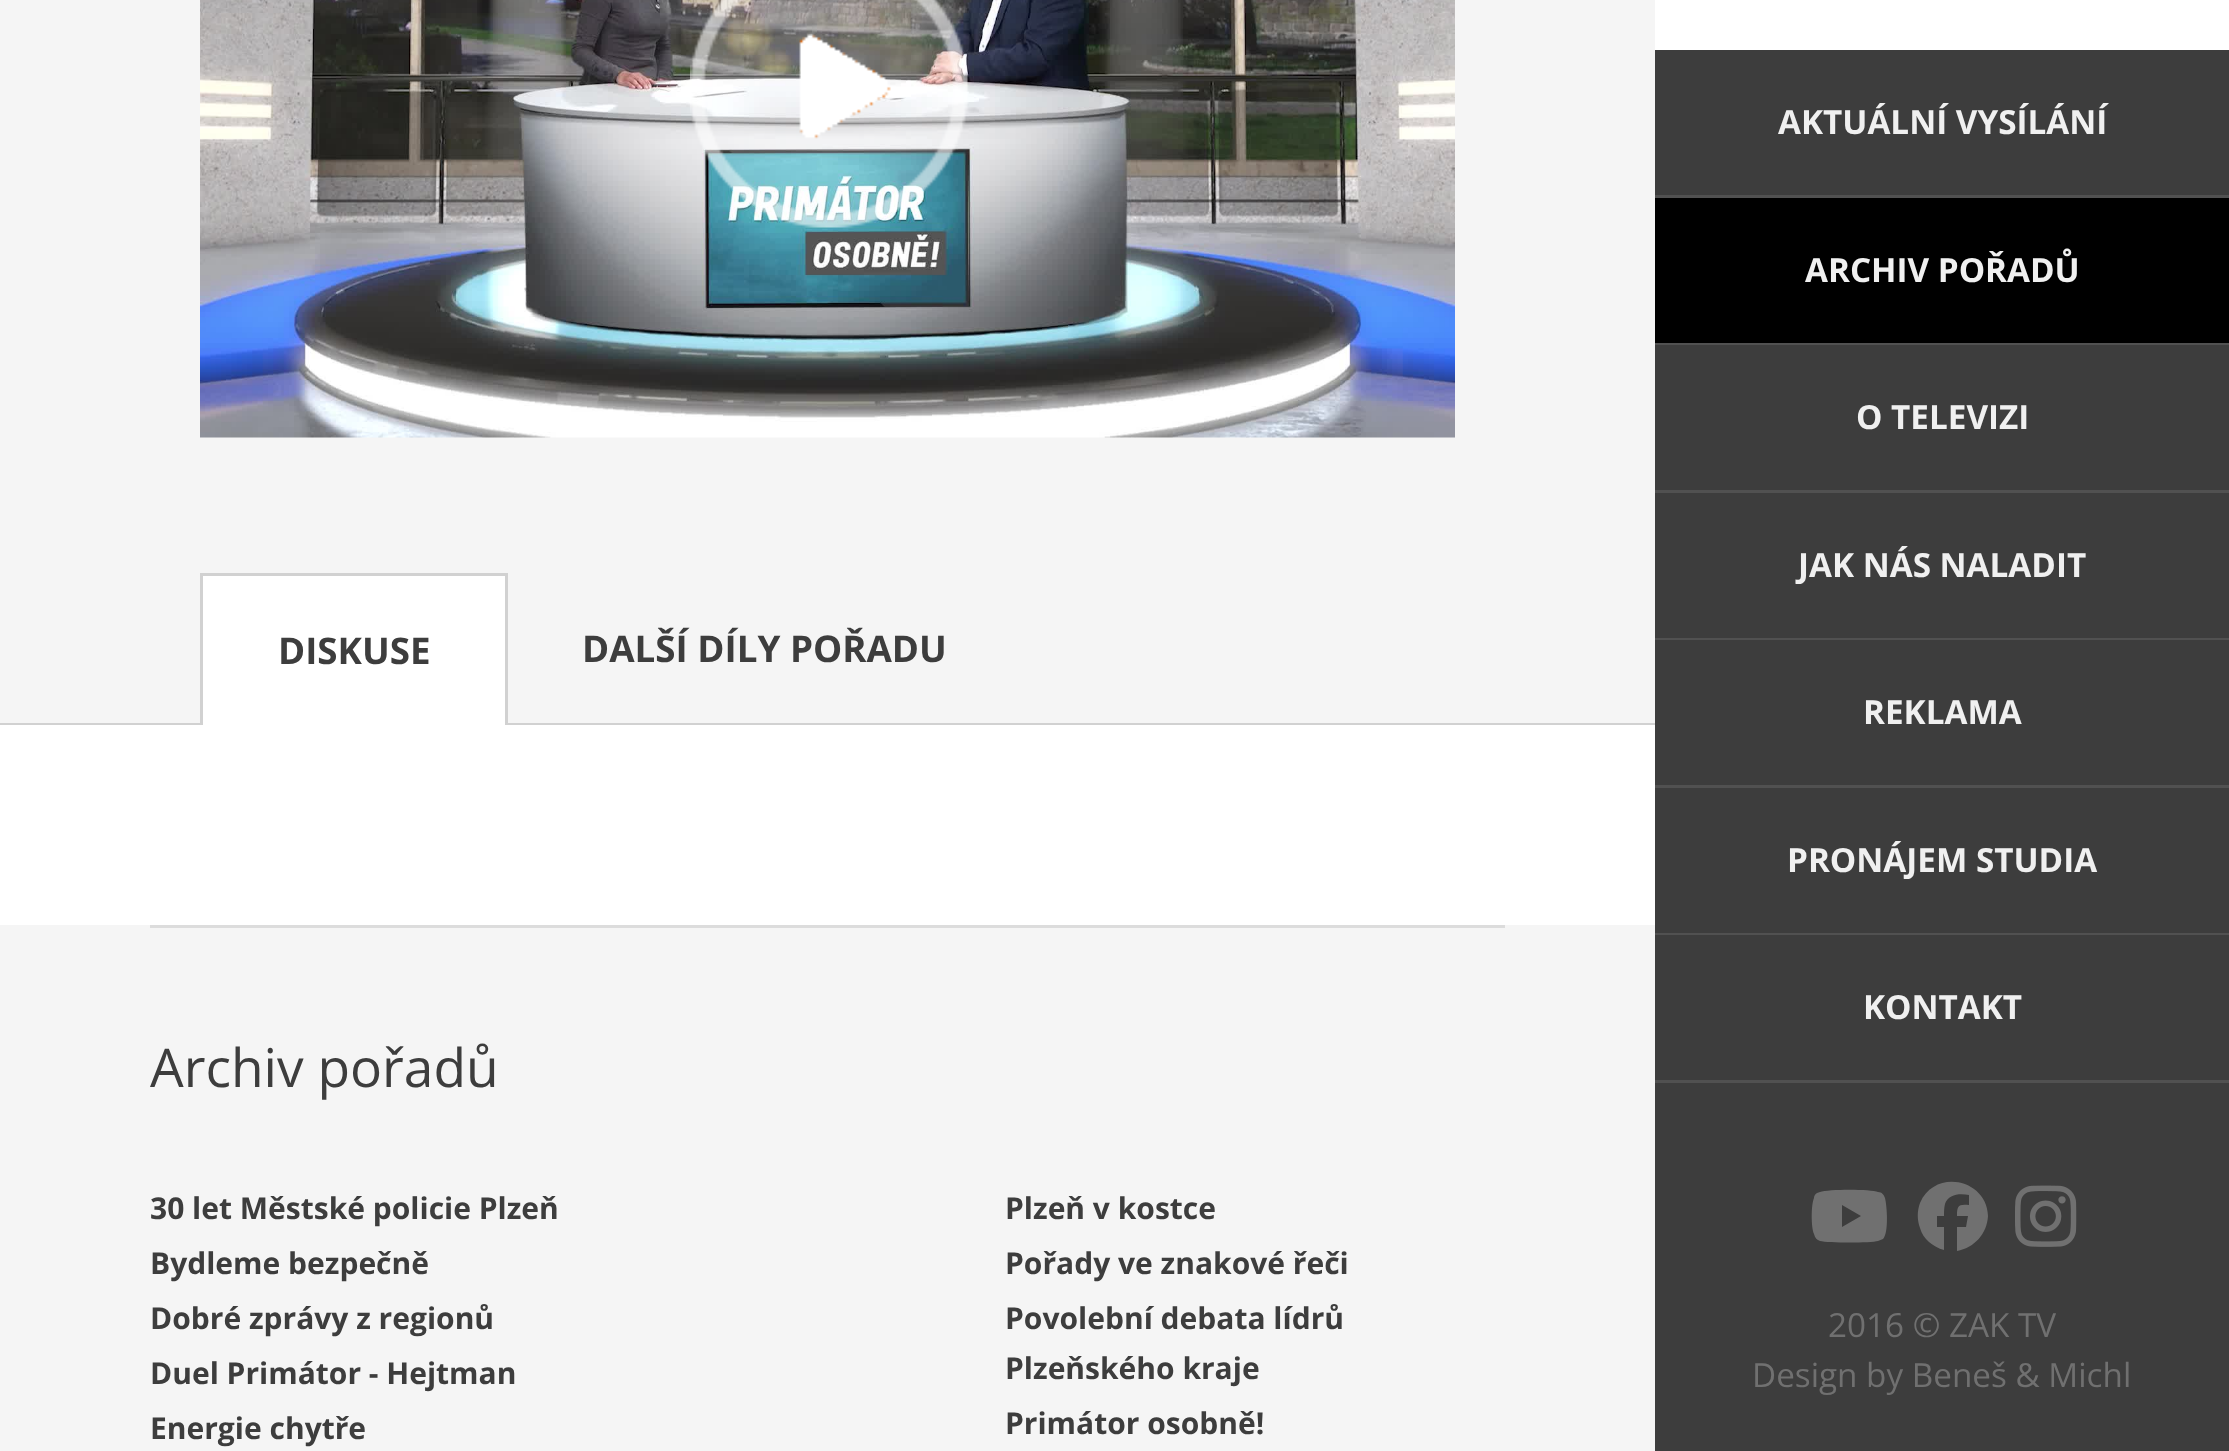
<!DOCTYPE html>
<meta charset="utf-8">
<style>body { margin: 0 } canvas { display: block }</style>
<canvas id="canvas" width="2229" height="1451"></canvas>
<img id="img1" src="img_01.png" hidden>
<img id="img2" src="img_02.png" hidden>
<img id="img3" src="img_03.png" hidden>
<script>
window.onload = function () {
	const canvas = document.getElementById("canvas");
	const ctx = canvas.getContext("2d");
	ctx.miterLimit = 4;
	ctx.fontKerning = "normal";
	function txt(s, x, y) {
		ctx.fillText(s, x, y);
	}
	function fill(x, y, w, h) {
		ctx.fillRect(x, y, w, h);
	}
	function img(id, x, y, w, h) {
		ctx.drawImage(document.getElementById(id), x, y, w, h);
	}

	ctx.fillStyle = "#3D3D3D";
	fill(0, 0, 2229, 1451);
	ctx.fillStyle = "#000000";
	fill(1655, 198, 574, 145);
	ctx.beginPath();
	ctx.moveTo(1662, 248);
	ctx.lineTo(1662, 288);
	ctx.lineTo(1632, 268);
	ctx.closePath();
	ctx.fill();
	ctx.fillStyle = "#F5F5F5";
	fill(0, 0, 1655, 1451);
	img("img1", 200, 0, 1255, 438);
	img("img2", 690, 0, 278, 228);
	ctx.fillStyle = "#D1D1D1";
	fill(0, 723, 1655, 2);
	ctx.fillStyle = "#FFFFFF";
	fill(203, 576, 302, 149);
	ctx.fillStyle = "#D1D1D1";
	fill(200, 573, 308, 3);
	fill(505, 573, 3, 152);
	fill(200, 573, 3, 152);
	ctx.fillStyle = "#FFFFFF";
	fill(0, 725, 1655, 200);
	ctx.fillStyle = "#DCDCDC";
	fill(150, 925, 1355, 3);
	ctx.fillStyle = "#FFFFFF";
	fill(1655, 0, 574, 50);
	ctx.fillStyle = "#515151";
	fill(1655, 195, 574, 3);
	fill(1655, 343, 574, 2);
	fill(1655, 490, 574, 3);
	fill(1655, 638, 574, 2);
	fill(1655, 785, 574, 3);
	fill(1655, 933, 574, 2);
	fill(1655, 1080, 574, 3);
	ctx.fillStyle = "#707070";
	ctx.beginPath();
	ctx.moveTo(1885, 1198);
	ctx.bezierCurveTo(1884, 1195, 1882, 1192, 1878, 1192);
	ctx.bezierCurveTo(1871, 1189, 1828, 1189, 1820, 1192);
	ctx.lineTo(1817, 1193);
	ctx.bezierCurveTo(1815, 1194, 1814, 1196, 1814, 1198);
	ctx.bezierCurveTo(1811, 1205, 1811, 1227, 1814, 1234);
	ctx.bezierCurveTo(1815, 1238, 1817, 1240, 1820, 1241);
	ctx.bezierCurveTo(1828, 1243, 1871, 1243, 1878, 1241);
	ctx.lineTo(1883, 1239);
	ctx.bezierCurveTo(1889, 1233, 1887, 1206, 1885, 1198);
	ctx.closePath();
	ctx.moveTo(1842, 1227);
	ctx.lineTo(1842, 1205);
	ctx.lineTo(1842, 1227);
	ctx.lineTo(1842, 1205);
	ctx.lineTo(1861, 1216);
	ctx.closePath();
	ctx.fill();
	ctx.beginPath();
	ctx.moveTo(1988, 1216);
	ctx.bezierCurveTo(1987, 1179, 1935, 1168, 1920, 1203);
	ctx.bezierCurveTo(1917, 1211, 1917, 1220, 1920, 1228);
	ctx.bezierCurveTo(1923, 1239, 1933, 1247, 1944, 1250);
	ctx.lineTo(1944, 1227);
	ctx.lineTo(1937, 1227);
	ctx.lineTo(1937, 1216);
	ctx.lineTo(1944, 1216);
	ctx.bezierCurveTo(1944, 1212, 1944, 1208, 1945, 1204);
	ctx.bezierCurveTo(1948, 1194, 1960, 1193, 1969, 1195);
	ctx.lineTo(1969, 1205);
	ctx.bezierCurveTo(1958, 1204, 1957, 1206, 1957, 1216);
	ctx.lineTo(1968, 1216);
	ctx.lineTo(1966, 1227);
	ctx.lineTo(1957, 1227);
	ctx.lineTo(1957, 1251);
	ctx.bezierCurveTo(1974, 1248, 1987, 1234, 1988, 1216);
	ctx.closePath();
	ctx.fill();
	img("img3", 2015, 1185, 62, 62);
	ctx.font = "bold 36.75px Open Sans";
	ctx.fillStyle = "#3D3D3D";
	txt("DISKUSE", 278, 664);
	txt("DALŠÍ DÍLY POŘADU", 582, 662);
	ctx.font = "53.25px Open Sans";
	txt("Archiv pořadů", 150, 1087);
	ctx.font = "bold 30px Open Sans";
	txt("30 let Městské policie Plzeň", 150, 1219);
	txt("Bydleme bezpečně", 150, 1274);
	txt("Dobré zprávy z regionů", 150, 1329);
	txt("Duel Primátor - Hejtman", 150, 1384);
	txt("Energie chytře", 150, 1439);
	txt("Plzeň v kostce", 1005, 1219);
	txt("Pořady ve znakové řeči", 1005, 1274);
	txt("Povolební debata lídrů", 1005, 1329);
	txt("Plzeňského kraje", 1005, 1379);
	txt("Primátor osobně!", 1005, 1434);
	ctx.font = "bold 33.25px Open Sans";
	ctx.fillStyle = "#F0F0F0";
	txt("AKTUÁLNÍ VYSÍLÁNÍ", 1778, 134);
	txt("ARCHIV POŘADŮ", 1805, 282);
	txt("O TELEVIZI", 1856, 429);
	txt("JAK NÁS NALADIT", 1798, 577);
	txt("REKLAMA", 1863, 724);
	txt("PRONÁJEM STUDIA", 1787, 872);
	txt("KONTAKT", 1863, 1019);
	ctx.font = "33.25px Open Sans";
	ctx.fillStyle = "#707070";
	txt("2016 © ZAK TV", 1828, 1337);
	txt("Design by Beneš & Michl", 1752, 1387);
};
</script>
